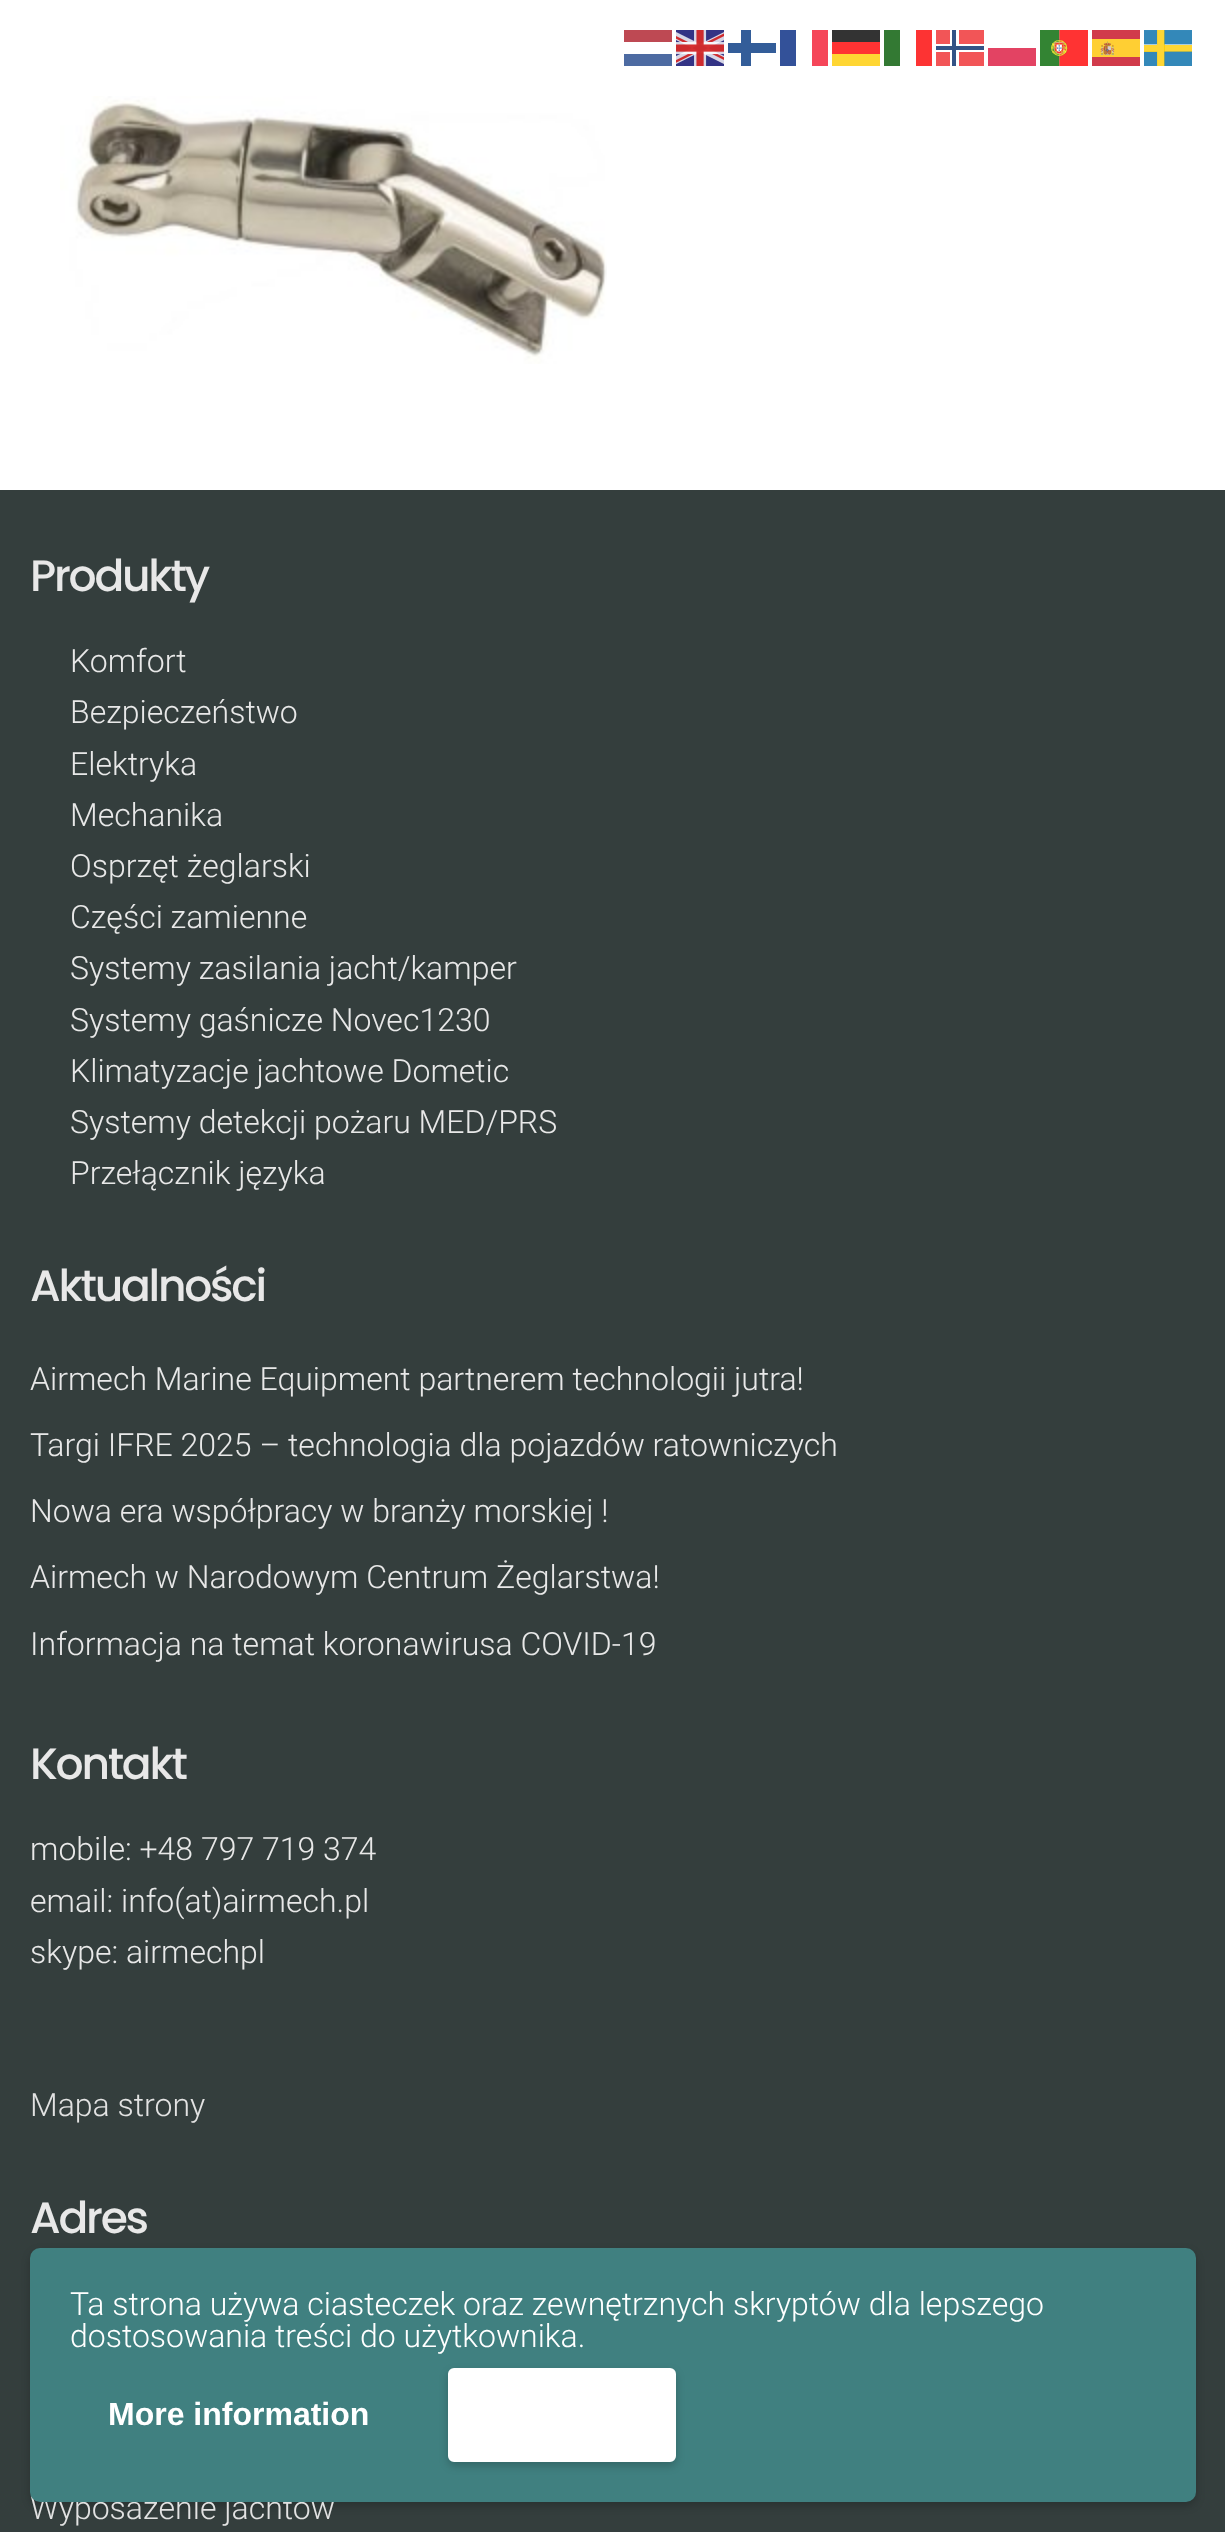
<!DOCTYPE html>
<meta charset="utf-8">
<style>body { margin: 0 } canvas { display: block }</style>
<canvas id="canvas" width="1225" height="2532"></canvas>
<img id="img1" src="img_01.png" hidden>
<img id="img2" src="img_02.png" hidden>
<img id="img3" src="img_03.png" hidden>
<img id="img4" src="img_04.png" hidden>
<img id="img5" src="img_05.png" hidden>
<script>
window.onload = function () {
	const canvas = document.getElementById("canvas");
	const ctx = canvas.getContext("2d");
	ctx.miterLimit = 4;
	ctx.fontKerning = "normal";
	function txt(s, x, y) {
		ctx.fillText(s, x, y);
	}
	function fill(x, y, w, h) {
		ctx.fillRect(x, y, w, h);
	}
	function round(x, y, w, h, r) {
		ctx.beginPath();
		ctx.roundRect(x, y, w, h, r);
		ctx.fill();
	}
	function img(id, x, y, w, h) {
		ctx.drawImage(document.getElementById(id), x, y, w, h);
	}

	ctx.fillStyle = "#FFFFFF";
	fill(0, 0, 1225, 2532);
	ctx.fillStyle = "#BE4953";
	fill(624, 30, 48, 12);
	img("img1", 676, 30, 48, 36);
	ctx.fillStyle = "#335D99";
	fill(728, 43, 48, 10);
	fill(741, 30, 10, 36);
	ctx.fillStyle = "#335199";
	fill(780, 30, 16, 36);
	ctx.fillStyle = "#F54659";
	fill(812, 30, 16, 36);
	ctx.fillStyle = "#333333";
	fill(832, 30, 48, 12);
	ctx.fillStyle = "#337933";
	fill(884, 30, 16, 36);
	ctx.fillStyle = "#FD3333";
	fill(916, 30, 16, 36);
	ctx.fillStyle = "#F25557";
	fill(936, 30, 48, 36);
	ctx.fillStyle = "#FFFFFF";
	fill(950, 30, 9, 36);
	ctx.fillStyle = "#FF3333";
	fill(832, 42, 48, 12);
	ctx.fillStyle = "#FFFFFF";
	fill(936, 44, 48, 8);
	ctx.fillStyle = "#335386";
	fill(952, 30, 4, 36);
	img("img2", 1040, 30, 48, 36);
	img("img3", 1092, 30, 48, 36);
	img("img4", 1144, 30, 48, 36);
	ctx.fillStyle = "#4D6BA2";
	fill(624, 54, 48, 12);
	ctx.fillStyle = "#FFD633";
	fill(832, 54, 48, 12);
	ctx.fillStyle = "#335386";
	fill(936, 46, 48, 4);
	ctx.fillStyle = "#E34363";
	fill(988, 48, 48, 18);
	img("img5", 60, 96, 547, 268);
	ctx.fillStyle = "#343E3D";
	fill(0, 490, 1225, 2042);
	ctx.fillStyle = "rgba(0, 0, 0, 0.2)";
	ctx.filter = "blur(4px)";
	ctx.beginPath();
	ctx.roundRect(30, 2252, 1166, 254, 10);
	ctx.fill();
	ctx.filter = "none";
	ctx.letterSpacing = "-2.25px";
	ctx.font = "500 44px Poppins";
	ctx.fillStyle = "#E8E8E8";
	txt("Produkty", 30, 591);
	ctx.letterSpacing = "0px";
	ctx.font = "300 32px Roboto";
	txt("Komfort", 70, 672);
	txt("Bezpieczeństwo", 70, 723);
	txt("Elektryka", 70, 775);
	txt("Mechanika", 70, 826);
	txt("Osprzęt żeglarski", 70, 877);
	txt("Części zamienne", 70, 928);
	txt("Systemy zasilania jacht/kamper", 70, 979);
	txt("Systemy gaśnicze Novec1230", 70, 1031);
	txt("Klimatyzacje jachtowe Dometic", 70, 1082);
	txt("Systemy detekcji pożaru MED/PRS", 70, 1133);
	txt("Przełącznik języka", 70, 1184);
	ctx.letterSpacing = "-2.25px";
	ctx.font = "500 44px Poppins";
	txt("Aktualności", 30, 1301);
	ctx.letterSpacing = "0px";
	ctx.font = "300 32px Roboto";
	txt("Airmech Marine Equipment partnerem technologii jutra!", 30, 1390);
	txt("Targi IFRE 2025 – technologia dla pojazdów ratowniczych", 30, 1456);
	txt("Nowa era współpracy w branży morskiej !", 30, 1522);
	txt("Airmech w Narodowym Centrum Żeglarstwa!", 30, 1588);
	txt("Informacja na temat koronawirusa COVID-19", 30, 1655);
	ctx.letterSpacing = "-2.25px";
	ctx.font = "500 44px Poppins";
	txt("Kontakt", 30, 1779);
	ctx.letterSpacing = "0px";
	ctx.font = "300 32px Roboto";
	txt("mobile: +48 797 719 374", 30, 1860);
	txt("email: info(at)airmech.pl", 30, 1912);
	txt("skype: airmechpl", 30, 1963);
	ctx.fillStyle = "#E2E2E2";
	txt("Mapa strony", 30, 2116);
	ctx.letterSpacing = "-2.25px";
	ctx.font = "500 44px Poppins";
	ctx.fillStyle = "#E8E8E8";
	txt("Adres", 30, 2233);
	ctx.letterSpacing = "0px";
	ctx.font = "300 32px Roboto";
	ctx.fillStyle = "#E2E2E2";
	txt("Wyposażenie jachtów", 30, 2519);
	ctx.fillStyle = "#408080";
	round(30, 2248, 1166, 254, 10);
	ctx.fillStyle = "#FFFFFF";
	txt("Ta strona używa ciasteczek oraz zewnętrznych skryptów dla lepszego", 70, 2315);
	txt("dostosowania treści do użytkownika.", 70, 2347);
	ctx.font = "bold 32px Liberation Sans";
	txt("More information", 108, 2425);
	ctx.fillStyle = "rgba(0, 0, 0, 0.2)";
	ctx.filter = "blur(4px)";
	ctx.beginPath();
	ctx.roundRect(448, 2372, 228, 94, 6);
	ctx.fill();
	ctx.filter = "none";
	ctx.fillStyle = "#FFFFFF";
	ctx.beginPath();
	ctx.roundRect(449, 2369, 226, 92, 5);
	ctx.fill();
	ctx.strokeStyle = "#FFFFFF";
	ctx.lineWidth = 2;
	ctx.stroke();
};
</script>
